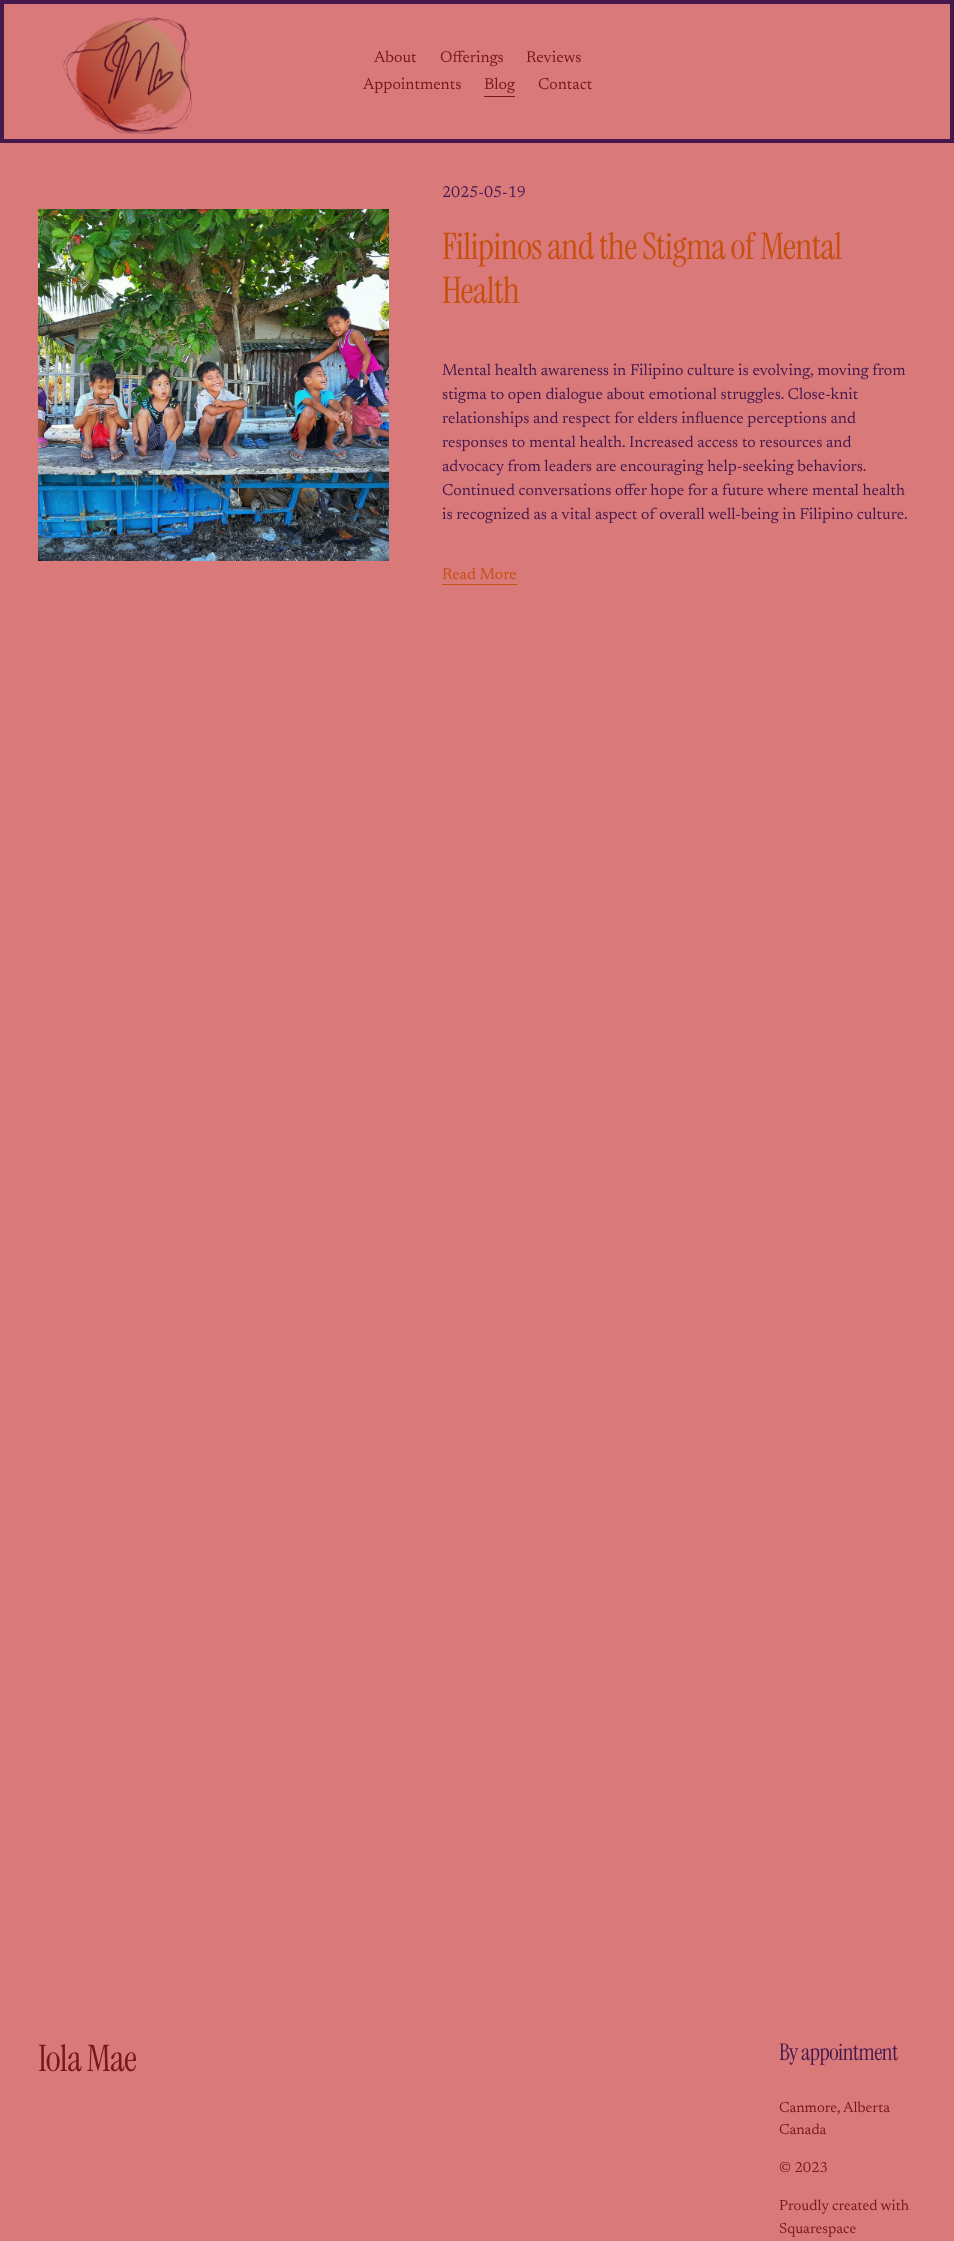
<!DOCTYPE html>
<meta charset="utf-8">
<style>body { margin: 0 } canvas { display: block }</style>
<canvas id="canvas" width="954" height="2241"></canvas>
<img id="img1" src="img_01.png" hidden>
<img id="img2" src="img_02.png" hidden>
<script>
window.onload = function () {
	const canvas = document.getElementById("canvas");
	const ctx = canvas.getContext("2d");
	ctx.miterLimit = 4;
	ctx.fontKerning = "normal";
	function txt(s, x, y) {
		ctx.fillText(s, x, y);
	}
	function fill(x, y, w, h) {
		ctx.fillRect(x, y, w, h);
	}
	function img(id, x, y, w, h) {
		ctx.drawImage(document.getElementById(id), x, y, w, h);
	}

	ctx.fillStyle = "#D97979";
	fill(0, 0, 954, 2241);
	ctx.strokeStyle = "#45184E";
	ctx.lineWidth = 4;
	ctx.strokeRect(2, 2, 950, 139);
	img("img1", 63, 17, 130, 118);
	ctx.fillStyle = "#75191D";
	fill(484, 96, 31, 1);
	img("img2", 38, 209, 351, 352);
	ctx.fillStyle = "#C74F11";
	fill(442, 584, 75, 1);
	ctx.font = "16px Newsreader";
	ctx.fillStyle = "#75191D";
	txt("About", 374, 62);
	txt("Offerings", 440, 62);
	txt("Reviews", 526, 62);
	txt("Appointments", 363, 89);
	txt("Blog", 484, 89);
	txt("Contact", 538, 89);
	ctx.fillStyle = "#45184E";
	txt("2025-05-19", 442, 197);
	ctx.letterSpacing = "-0.75px";
	ctx.font = "36.6px Instrument Serif";
	ctx.fillStyle = "#C74F11";
	txt("Filipinos and the Stigma of Mental", 442, 259);
	txt("Health", 442, 303);
	ctx.letterSpacing = "0px";
	ctx.font = "16px Newsreader";
	ctx.fillStyle = "#45184E";
	txt("Mental health awareness in Filipino culture is evolving, moving from", 442, 375);
	txt("stigma to open dialogue about emotional struggles. Close-knit", 442, 399);
	txt("relationships and respect for elders influence perceptions and", 442, 423);
	txt("responses to mental health. Increased access to resources and", 442, 447);
	txt("advocacy from leaders are encouraging help-seeking behaviors.", 442, 471);
	txt("Continued conversations offer hope for a future where mental health", 442, 495);
	txt("is recognized as a vital aspect of overall well-being in Filipino culture.", 442, 519);
	ctx.fillStyle = "#C74F11";
	txt("Read More", 442, 579);
	ctx.letterSpacing = "-0.75px";
	ctx.font = "36.6px Instrument Serif";
	ctx.fillStyle = "#75191D";
	txt("Iola Mae", 38, 2071);
	ctx.letterSpacing = "-0.5px";
	ctx.font = "23px Instrument Serif";
	ctx.fillStyle = "#45184E";
	txt("By appointment", 779, 2060);
	ctx.letterSpacing = "0px";
	ctx.font = "14.75px Newsreader";
	ctx.fillStyle = "#75191D";
	txt("Canmore, Alberta", 779, 2112);
	txt("Canada", 779, 2134);
	txt("© 2023", 779, 2172);
	txt("Proudly created with", 779, 2210);
	txt("Squarespace", 779, 2233);
};
</script>
